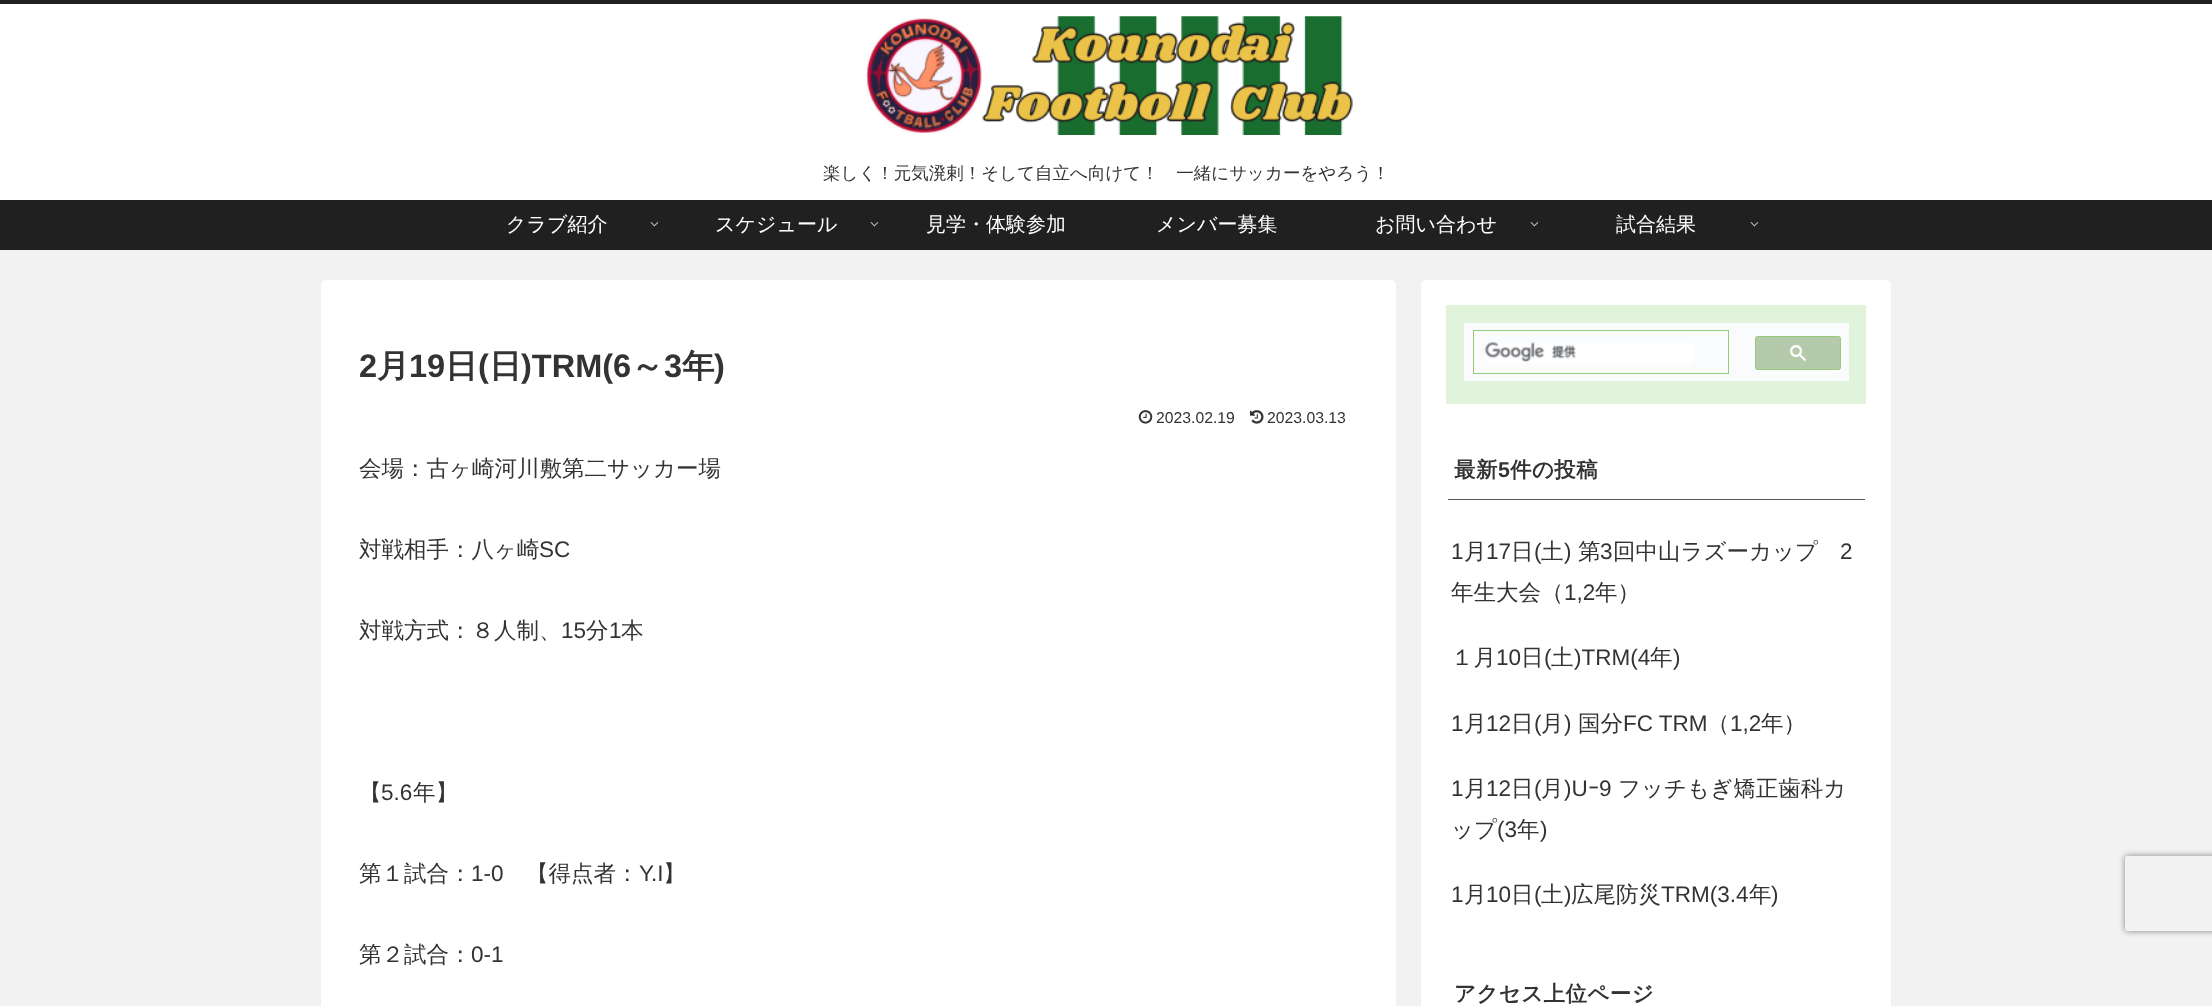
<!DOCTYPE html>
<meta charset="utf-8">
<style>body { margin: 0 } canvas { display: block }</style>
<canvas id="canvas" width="2212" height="1006"></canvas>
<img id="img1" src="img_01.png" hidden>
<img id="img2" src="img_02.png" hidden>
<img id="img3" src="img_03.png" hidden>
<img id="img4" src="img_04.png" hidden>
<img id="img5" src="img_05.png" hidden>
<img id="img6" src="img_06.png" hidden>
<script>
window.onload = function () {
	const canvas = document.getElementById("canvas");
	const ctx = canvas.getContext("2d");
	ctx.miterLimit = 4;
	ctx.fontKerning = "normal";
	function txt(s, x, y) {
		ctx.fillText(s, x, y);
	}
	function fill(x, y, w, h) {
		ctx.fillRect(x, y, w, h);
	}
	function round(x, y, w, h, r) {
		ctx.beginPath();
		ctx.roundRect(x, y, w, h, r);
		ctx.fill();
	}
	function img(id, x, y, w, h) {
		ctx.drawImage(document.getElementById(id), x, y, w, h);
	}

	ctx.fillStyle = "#F2F2F2";
	fill(0, 0, 2212, 1006);
	ctx.fillStyle = "#FFFFFF";
	fill(0, 4, 2212, 196);
	ctx.fillStyle = "#202020";
	fill(0, 0, 2212, 4);
	img("img1", 866, 16, 487, 119);
	fill(0, 200, 2212, 50);
	img("img2", 650, 222, 9, 5);
	img("img2", 870, 222, 9, 5);
	img("img2", 1530, 222, 9, 5);
	img("img2", 1750, 222, 9, 5);
	ctx.fillStyle = "#FFFFFF";
	round(321, 280, 1075, 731, 5);
	img("img3", 1138, 410, 15, 14);
	img("img4", 1250, 410, 14, 14);
	round(1421, 280, 470, 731, 5);
	ctx.fillStyle = "#E1F3DA";
	fill(1446, 305, 420, 99);
	ctx.fillStyle = "#FAFBFC";
	fill(1464, 323, 385, 58);
	ctx.strokeStyle = "#94CC7A";
	ctx.strokeRect(1473.5, 330.5, 255, 43);
	ctx.fillStyle = "#FFFFFF";
	round(1485, 343, 210, 20, 5);
	img("img5", 1484, 342, 92, 20);
	ctx.fillStyle = "#B5C9AB";
	ctx.beginPath();
	ctx.roundRect(1755.5, 336.5, 85, 33, 2);
	ctx.fill();
	ctx.stroke();
	img("img6", 1790, 345, 16, 16);
	ctx.fillStyle = "#595857";
	fill(1448, 499, 417, 1);
	ctx.save();
	ctx.beginPath();
	ctx.moveTo(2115, 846);
	ctx.lineTo(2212, 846);
	ctx.lineTo(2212, 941);
	ctx.lineTo(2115, 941);
	ctx.closePath();
	ctx.moveTo(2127.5, 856);
	ctx.lineTo(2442.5, 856);
	ctx.bezierCurveTo(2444, 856, 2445, 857, 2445, 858.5);
	ctx.lineTo(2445, 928.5);
	ctx.bezierCurveTo(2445, 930, 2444, 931, 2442.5, 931);
	ctx.lineTo(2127.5, 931);
	ctx.bezierCurveTo(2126, 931, 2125, 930, 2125, 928.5);
	ctx.lineTo(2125, 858.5);
	ctx.bezierCurveTo(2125, 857, 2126, 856, 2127.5, 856);
	ctx.closePath();
	ctx.clip("evenodd");
	ctx.fillStyle = "#808080";
	ctx.filter = "blur(3px)";
	ctx.beginPath();
	ctx.roundRect(2125, 856, 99, 75, 2.5);
	ctx.fill();
	ctx.filter = "none";
	ctx.restore();
	ctx.font = "500 17.5px WenQuanYi Zen Hei";
	ctx.fillStyle = "#333333";
	txt("楽しく！元気溌剌！そして自立へ向けて！　一緒にサッカーをやろう！", 823, 179);
	ctx.font = "500 20px WenQuanYi Zen Hei";
	ctx.fillStyle = "#FFFFFF";
	txt("クラブ紹介", 506, 231);
	txt("スケジュール", 715, 231);
	txt("見学・体験参加", 926, 231);
	txt("メンバー募集", 1156, 231);
	txt("お問い合わせ", 1375, 231);
	txt("試合結果", 1616, 231);
	ctx.font = "bold 32.5px Liberation Sans";
	ctx.fillStyle = "#333333";
	txt("2", 359, 377);
	ctx.font = "bold 32.5px WenQuanYi Zen Hei";
	txt("月", 377, 377);
	ctx.font = "bold 32.5px Liberation Sans";
	txt("19", 409, 377);
	ctx.font = "bold 32.5px WenQuanYi Zen Hei";
	txt("日", 445, 377);
	ctx.font = "bold 32.5px Liberation Sans";
	txt("(", 478, 377);
	ctx.font = "bold 32.5px WenQuanYi Zen Hei";
	txt("日", 489, 377);
	ctx.font = "bold 32.5px Liberation Sans";
	txt(")TRM(6", 521, 377);
	ctx.font = "bold 32.5px WenQuanYi Zen Hei";
	txt("～", 631, 377);
	ctx.font = "bold 32.5px Liberation Sans";
	txt("3", 664, 377);
	ctx.font = "bold 32.5px WenQuanYi Zen Hei";
	txt("年", 682, 377);
	ctx.font = "bold 32.5px Liberation Sans";
	txt(")", 714, 377);
	ctx.font = "15.75px Liberation Sans";
	txt("2023.02.19", 1156, 423);
	txt("2023.03.13", 1267, 423);
	ctx.font = "500 22.5px WenQuanYi Zen Hei";
	txt("会場：古ヶ崎河川敷第二サッカー場", 359, 476);
	txt("対戦相手：八ヶ崎", 359, 557);
	ctx.font = "22.5px Liberation Sans";
	txt("SC", 539, 557);
	ctx.font = "500 22.5px WenQuanYi Zen Hei";
	txt("対戦方式：８人制、", 359, 638);
	ctx.font = "22.5px Liberation Sans";
	txt("15", 561, 638);
	ctx.font = "500 22.5px WenQuanYi Zen Hei";
	txt("分", 586, 638);
	ctx.font = "22.5px Liberation Sans";
	txt("1", 609, 638);
	ctx.font = "500 22.5px WenQuanYi Zen Hei";
	txt("本", 621, 638);
	txt("【", 359, 800);
	ctx.font = "22.5px Liberation Sans";
	txt("5.6", 381, 800);
	ctx.font = "500 22.5px WenQuanYi Zen Hei";
	txt("年】", 413, 800);
	txt("第１試合：", 359, 881);
	ctx.font = "22.5px Liberation Sans";
	txt("1-0", 471, 881);
	ctx.font = "500 22.5px WenQuanYi Zen Hei";
	txt("【得点者：", 526, 881);
	ctx.font = "22.5px Liberation Sans";
	txt("Y.I", 639, 881);
	ctx.font = "500 22.5px WenQuanYi Zen Hei";
	txt("】", 663, 881);
	txt("第２試合：", 359, 962);
	ctx.font = "22.5px Liberation Sans";
	txt("0-1", 471, 962);
	ctx.letterSpacing = "0.5px";
	ctx.font = "bold 21.4px WenQuanYi Zen Hei";
	txt("最新", 1454, 477);
	ctx.font = "bold 21.4px Liberation Sans";
	txt("5", 1498, 477);
	ctx.font = "bold 21.4px WenQuanYi Zen Hei";
	txt("件の投稿", 1510, 477);
	ctx.letterSpacing = "0px";
	ctx.font = "22.5px Liberation Sans";
	txt("1", 1451, 559);
	ctx.font = "500 22.5px WenQuanYi Zen Hei";
	txt("月", 1464, 559);
	ctx.font = "22.5px Liberation Sans";
	txt("17", 1486, 559);
	ctx.font = "500 22.5px WenQuanYi Zen Hei";
	txt("日", 1511, 559);
	ctx.font = "22.5px Liberation Sans";
	txt("(", 1534, 559);
	ctx.font = "500 22.5px WenQuanYi Zen Hei";
	txt("土", 1541, 559);
	ctx.font = "22.5px Liberation Sans";
	txt(")", 1564, 559);
	ctx.font = "500 22.5px WenQuanYi Zen Hei";
	txt("第", 1578, 559);
	ctx.font = "22.5px Liberation Sans";
	txt("3", 1600, 559);
	ctx.font = "500 22.5px WenQuanYi Zen Hei";
	txt("回中山ラズーカップ", 1613, 559);
	ctx.font = "22.5px Liberation Sans";
	txt("2", 1840, 559);
	ctx.font = "500 22.5px WenQuanYi Zen Hei";
	txt("年生大会（", 1451, 600);
	ctx.font = "22.5px Liberation Sans";
	txt("1,2", 1564, 600);
	ctx.font = "500 22.5px WenQuanYi Zen Hei";
	txt("年）", 1595, 600);
	txt("１月", 1451, 665);
	ctx.font = "22.5px Liberation Sans";
	txt("10", 1496, 665);
	ctx.font = "500 22.5px WenQuanYi Zen Hei";
	txt("日", 1521, 665);
	ctx.font = "22.5px Liberation Sans";
	txt("(", 1544, 665);
	ctx.font = "500 22.5px WenQuanYi Zen Hei";
	txt("土", 1551, 665);
	ctx.font = "22.5px Liberation Sans";
	txt(")TRM(4", 1574, 665);
	ctx.font = "500 22.5px WenQuanYi Zen Hei";
	txt("年", 1650, 665);
	ctx.font = "22.5px Liberation Sans";
	txt(")", 1673, 665);
	txt("1", 1451, 731);
	ctx.font = "500 22.5px WenQuanYi Zen Hei";
	txt("月", 1464, 731);
	ctx.font = "22.5px Liberation Sans";
	txt("12", 1486, 731);
	ctx.font = "500 22.5px WenQuanYi Zen Hei";
	txt("日", 1511, 731);
	ctx.font = "22.5px Liberation Sans";
	txt("(", 1534, 731);
	ctx.font = "500 22.5px WenQuanYi Zen Hei";
	txt("月", 1541, 731);
	ctx.font = "22.5px Liberation Sans";
	txt(")", 1564, 731);
	ctx.font = "500 22.5px WenQuanYi Zen Hei";
	txt("国分", 1578, 731);
	ctx.font = "22.5px Liberation Sans";
	txt("FC TRM", 1623, 731);
	ctx.font = "500 22.5px WenQuanYi Zen Hei";
	txt("（", 1707, 731);
	ctx.font = "22.5px Liberation Sans";
	txt("1,2", 1730, 731);
	ctx.font = "500 22.5px WenQuanYi Zen Hei";
	txt("年）", 1761, 731);
	ctx.font = "22.5px Liberation Sans";
	txt("1", 1451, 796);
	ctx.font = "500 22.5px WenQuanYi Zen Hei";
	txt("月", 1464, 796);
	ctx.font = "22.5px Liberation Sans";
	txt("12", 1486, 796);
	ctx.font = "500 22.5px WenQuanYi Zen Hei";
	txt("日", 1511, 796);
	ctx.font = "22.5px Liberation Sans";
	txt("(", 1534, 796);
	ctx.font = "500 22.5px WenQuanYi Zen Hei";
	txt("月", 1541, 796);
	ctx.font = "22.5px Liberation Sans";
	txt(")U", 1564, 796);
	ctx.font = "22.5px IPAPGothic";
	txt("ｰ", 1588, 796);
	ctx.font = "22.5px Liberation Sans";
	txt("9", 1599, 796);
	ctx.font = "500 22.5px WenQuanYi Zen Hei";
	txt("フッチもぎ矯正歯科カ", 1618, 796);
	txt("ップ", 1451, 837);
	ctx.font = "22.5px Liberation Sans";
	txt("(3", 1497, 837);
	ctx.font = "500 22.5px WenQuanYi Zen Hei";
	txt("年", 1517, 837);
	ctx.font = "22.5px Liberation Sans";
	txt(")", 1540, 837);
	txt("1", 1451, 902);
	ctx.font = "500 22.5px WenQuanYi Zen Hei";
	txt("月", 1464, 902);
	ctx.font = "22.5px Liberation Sans";
	txt("10", 1486, 902);
	ctx.font = "500 22.5px WenQuanYi Zen Hei";
	txt("日", 1511, 902);
	ctx.font = "22.5px Liberation Sans";
	txt("(", 1534, 902);
	ctx.font = "500 22.5px WenQuanYi Zen Hei";
	txt("土", 1541, 902);
	ctx.font = "22.5px Liberation Sans";
	txt(")", 1564, 902);
	ctx.font = "500 22.5px WenQuanYi Zen Hei";
	txt("広尾防災", 1571, 902);
	ctx.font = "22.5px Liberation Sans";
	txt("TRM(3.4", 1661, 902);
	ctx.font = "500 22.5px WenQuanYi Zen Hei";
	txt("年", 1749, 902);
	ctx.font = "22.5px Liberation Sans";
	txt(")", 1771, 902);
	ctx.letterSpacing = "0.5px";
	ctx.font = "bold 21.4px WenQuanYi Zen Hei";
	txt("アクセス上位ページ", 1454, 1001);
};
</script>
